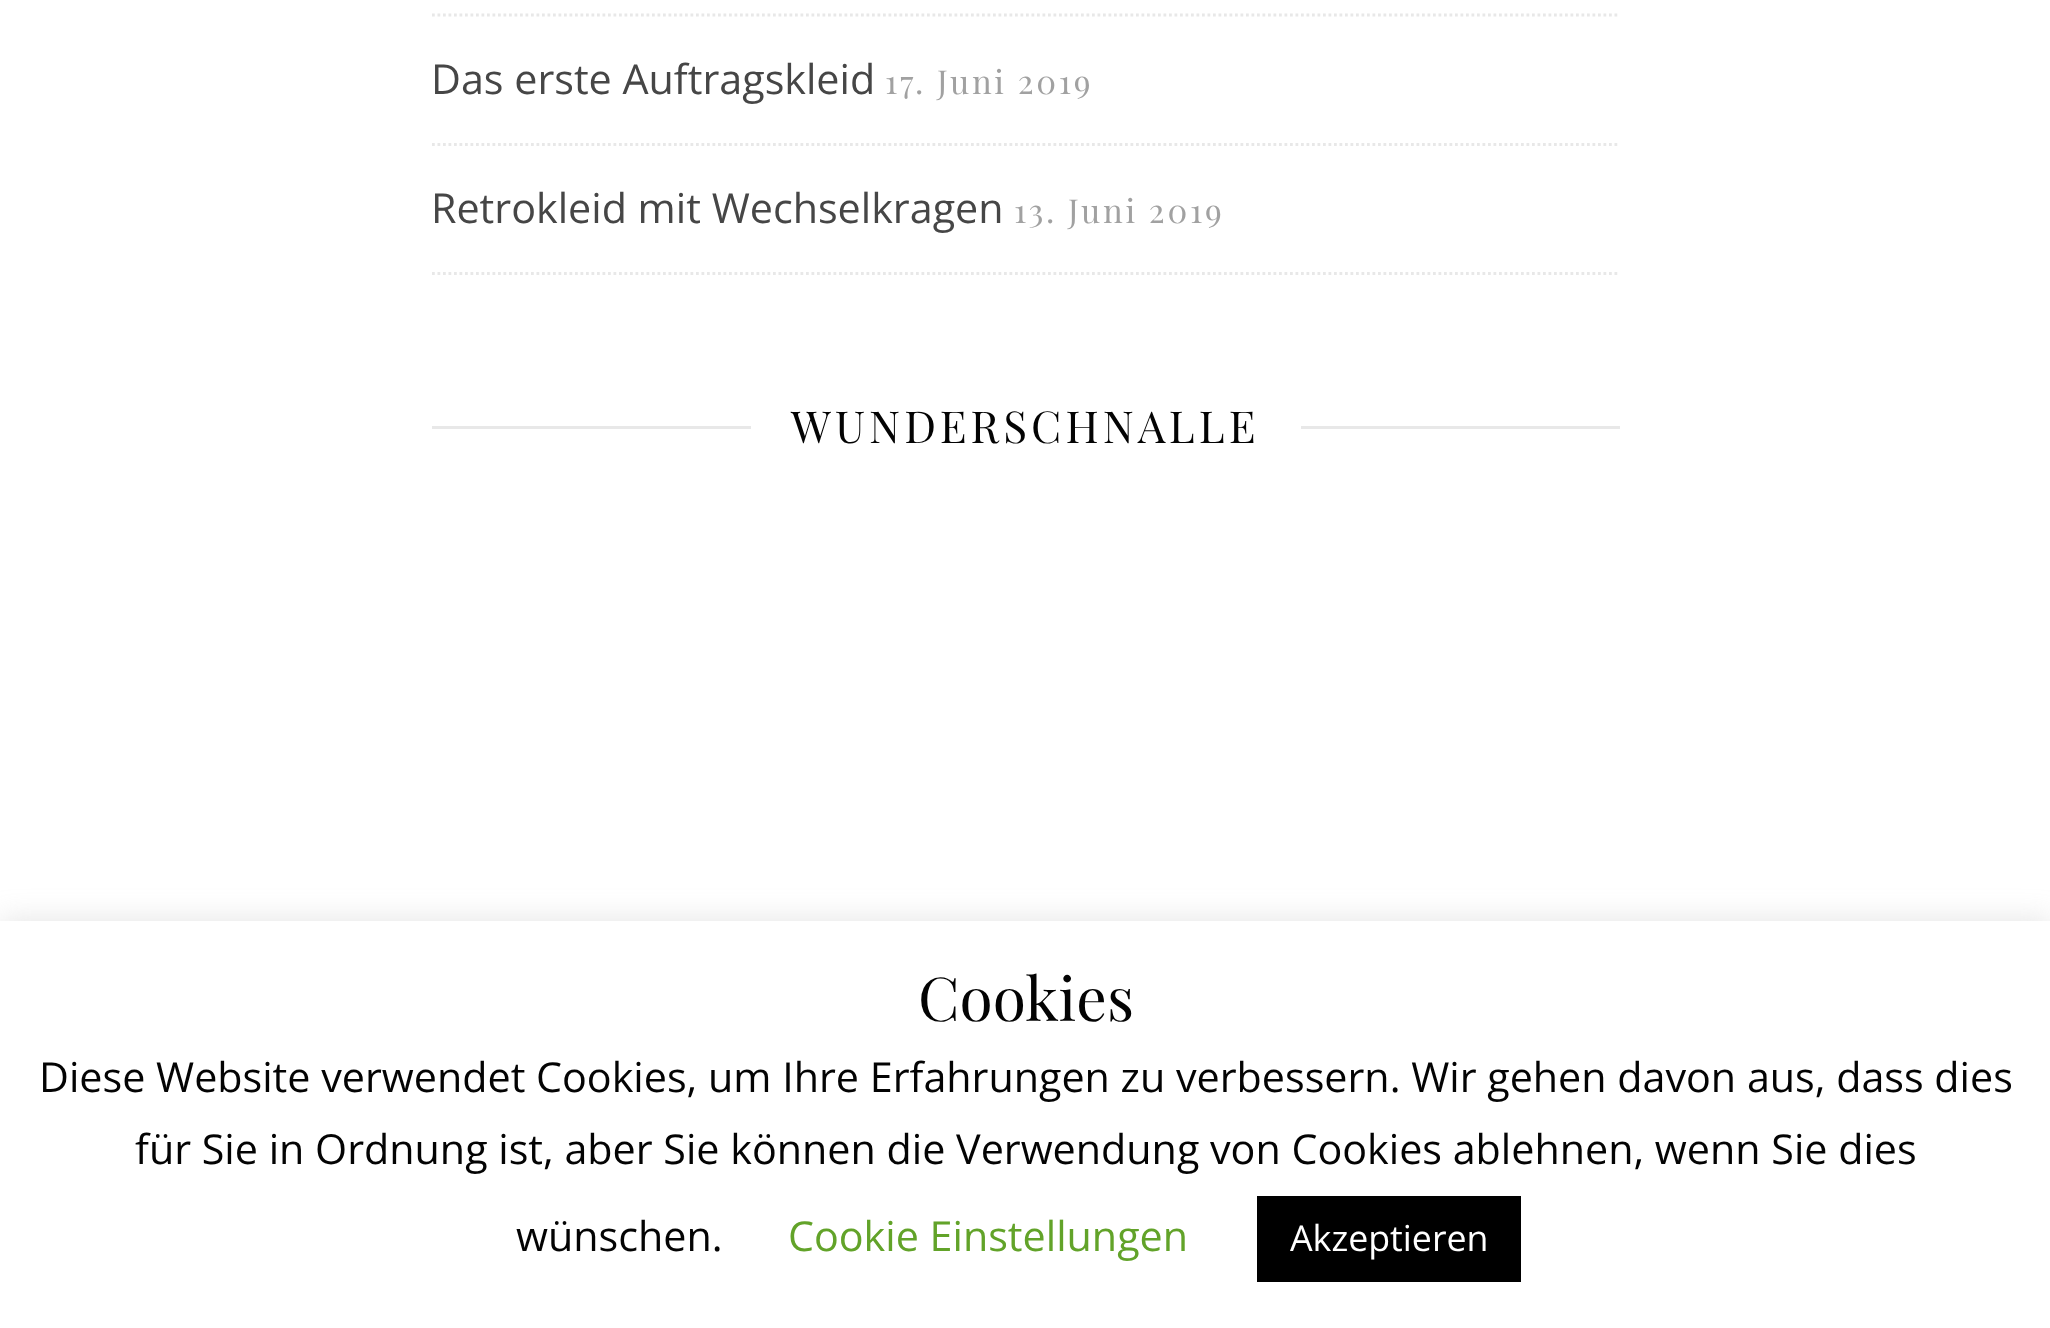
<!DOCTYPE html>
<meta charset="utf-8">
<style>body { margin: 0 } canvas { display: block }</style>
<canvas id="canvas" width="2050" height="1328"></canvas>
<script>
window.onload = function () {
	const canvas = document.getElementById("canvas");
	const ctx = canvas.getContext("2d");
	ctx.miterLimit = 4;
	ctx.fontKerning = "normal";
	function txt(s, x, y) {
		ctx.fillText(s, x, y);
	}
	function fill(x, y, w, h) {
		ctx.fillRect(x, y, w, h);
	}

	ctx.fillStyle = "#FFFFFF";
	fill(0, 0, 2050, 1328);
	ctx.beginPath();
	ctx.moveTo(432, 15);
	ctx.lineTo(1620, 15);
	ctx.strokeStyle = "#E8E8E8";
	ctx.lineWidth = 2.8;
	ctx.setLineDash([2.75, 2.75]);
	ctx.stroke();
	ctx.beginPath();
	ctx.moveTo(432, 144.5);
	ctx.lineTo(1620, 144.5);
	ctx.stroke();
	ctx.beginPath();
	ctx.moveTo(432, 273.5);
	ctx.lineTo(1620, 273.5);
	ctx.stroke();
	ctx.fillStyle = "#E8E8E8";
	fill(432, 426, 319, 3);
	fill(1301, 426, 319, 3);
	ctx.fillStyle = "rgba(172, 171, 171, 0.3)";
	ctx.filter = "blur(14px)";
	ctx.beginPath();
	ctx.rect(0, 919, 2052, 407);
	ctx.fill();
	ctx.filter = "none";
	ctx.fillStyle = "#FFFFFF";
	fill(0, 921, 2050, 407);
	ctx.fillStyle = "#000000";
	fill(1257, 1196, 264, 86);
	ctx.font = "41.25px Open Sans";
	ctx.fillStyle = "#464646";
	txt("Das erste Auftragskleid", 431, 94);
	ctx.letterSpacing = "2.75px";
	ctx.font = "33px Playfair Display";
	ctx.fillStyle = "#A1A1A1";
	txt("17. Juni 2019", 885, 94);
	ctx.letterSpacing = "0px";
	ctx.font = "41.25px Open Sans";
	ctx.fillStyle = "#464646";
	txt("Retrokleid mit Wechselkragen", 431, 223);
	ctx.letterSpacing = "2.75px";
	ctx.font = "33px Playfair Display";
	ctx.fillStyle = "#A1A1A1";
	txt("13. Juni 2019", 1014, 223);
	ctx.letterSpacing = "4.1px";
	ctx.font = "44px Playfair Display";
	ctx.fillStyle = "#030303";
	txt("WUNDERSCHNALLE", 791, 443);
	ctx.letterSpacing = "0px";
	ctx.font = "60.5px Playfair Display";
	txt("Cookies", 918, 1021);
	ctx.font = "41.25px Open Sans";
	txt("Diese Website verwendet Cookies, um Ihre Erfahrungen zu verbessern. Wir gehen davon aus, dass dies", 39, 1092);
	txt("für Sie in Ordnung ist, aber Sie können die Verwendung von Cookies ablehnen, wenn Sie dies", 135, 1164);
	txt("wünschen.", 516, 1251);
	ctx.fillStyle = "#62A329";
	txt("Cookie Einstellungen", 788, 1251);
	ctx.font = "35.75px Open Sans";
	ctx.fillStyle = "#FFFFFF";
	txt("Akzeptieren", 1290, 1251);
};
</script>
